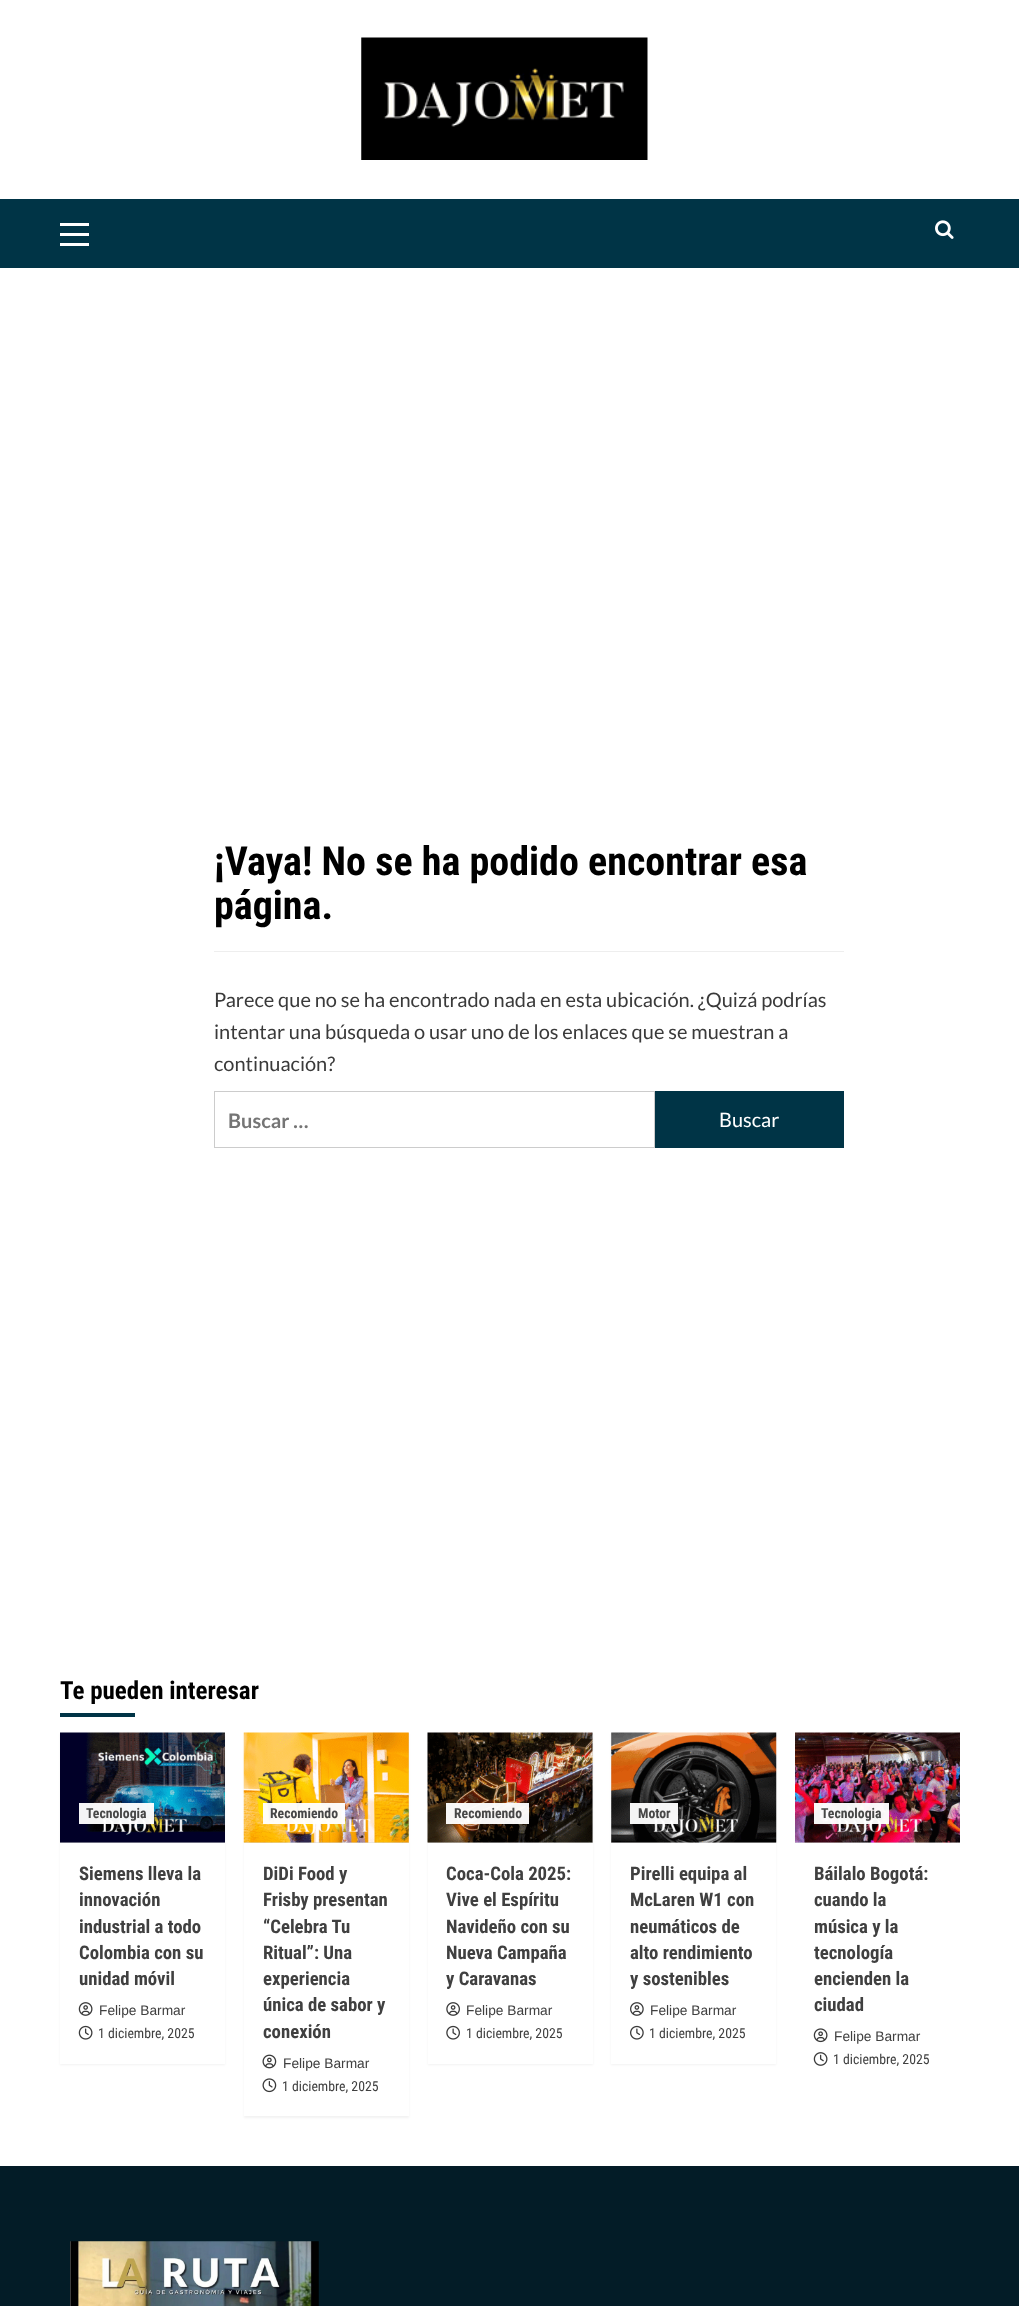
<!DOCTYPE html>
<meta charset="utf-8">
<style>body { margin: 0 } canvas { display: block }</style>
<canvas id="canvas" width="1019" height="2306"></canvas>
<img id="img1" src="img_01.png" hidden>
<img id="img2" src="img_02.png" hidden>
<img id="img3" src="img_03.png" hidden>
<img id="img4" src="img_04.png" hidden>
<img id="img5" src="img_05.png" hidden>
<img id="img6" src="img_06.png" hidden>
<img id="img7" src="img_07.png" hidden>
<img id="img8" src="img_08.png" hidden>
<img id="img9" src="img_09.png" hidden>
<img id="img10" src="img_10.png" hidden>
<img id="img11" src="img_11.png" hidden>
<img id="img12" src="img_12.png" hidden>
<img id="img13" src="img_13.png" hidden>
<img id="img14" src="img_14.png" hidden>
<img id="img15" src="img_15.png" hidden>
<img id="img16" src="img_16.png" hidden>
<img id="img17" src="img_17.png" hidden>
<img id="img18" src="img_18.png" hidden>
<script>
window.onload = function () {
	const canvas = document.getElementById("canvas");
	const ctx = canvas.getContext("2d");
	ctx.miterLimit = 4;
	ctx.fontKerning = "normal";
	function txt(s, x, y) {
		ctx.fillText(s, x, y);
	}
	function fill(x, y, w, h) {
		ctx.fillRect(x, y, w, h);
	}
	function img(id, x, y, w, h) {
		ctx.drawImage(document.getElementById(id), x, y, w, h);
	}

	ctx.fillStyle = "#FFFFFF";
	fill(0, 0, 1019, 2306);
	img("img1", 361, 37, 287, 123);
	ctx.fillStyle = "#003446";
	fill(0, 199, 1019, 69);
	ctx.fillStyle = "#FFFFFF";
	fill(60, 233, 29, 3);
	fill(60, 223, 29, 3);
	fill(60, 243, 29, 3);
	img("img2", 935, 220, 19, 19);
	ctx.fillStyle = "#EEEEEE";
	fill(214, 951, 630, 1);
	ctx.strokeStyle = "#CCCCCC";
	ctx.strokeRect(214.5, 1091.5, 440, 56);
	ctx.fillStyle = "#003446";
	fill(655, 1091, 189, 57);
	fill(60, 1713, 75, 4);
	ctx.fillStyle = "rgba(0, 0, 0, 0.05)";
	ctx.filter = "blur(1px)";
	ctx.beginPath();
	ctx.rect(60, 1734, 165, 331);
	ctx.fill();
	ctx.filter = "none";
	ctx.fillStyle = "#FFFFFF";
	fill(60, 1843, 165, 221);
	ctx.fillStyle = "#D8D8D8";
	fill(60, 1842, 165, 1);
	img("img3", 60, 1732, 165, 111);
	ctx.fillStyle = "rgba(255, 255, 255, 0.96)";
	fill(79, 1803, 75, 21);
	img("img4", 78, 2002, 15, 14);
	img("img5", 78, 2025, 15, 15);
	ctx.fillStyle = "rgba(0, 0, 0, 0.05)";
	ctx.filter = "blur(1px)";
	ctx.beginPath();
	ctx.rect(244, 1734, 165, 384);
	ctx.fill();
	ctx.filter = "none";
	ctx.fillStyle = "#FFFFFF";
	fill(244, 1843, 165, 273);
	ctx.fillStyle = "#D8D8D8";
	fill(244, 1733, 165, 110);
	img("img6", 243, 1732, 166, 111);
	ctx.fillStyle = "rgba(255, 255, 255, 0.96)";
	fill(263, 1803, 82, 21);
	img("img7", 262, 2054, 15, 15);
	img("img8", 262, 2078, 15, 15);
	ctx.fillStyle = "rgba(0, 0, 0, 0.05)";
	ctx.filter = "blur(1px)";
	ctx.beginPath();
	ctx.rect(428, 1734, 165, 331);
	ctx.fill();
	ctx.filter = "none";
	ctx.fillStyle = "#FFFFFF";
	fill(428, 1843, 165, 221);
	ctx.fillStyle = "#D8D8D8";
	fill(428, 1733, 165, 110);
	img("img9", 427, 1732, 166, 111);
	ctx.fillStyle = "rgba(255, 255, 255, 0.96)";
	fill(446, 1803, 83, 21);
	img("img10", 446, 2002, 14, 14);
	img("img11", 446, 2025, 14, 15);
	ctx.fillStyle = "rgba(0, 0, 0, 0.05)";
	ctx.filter = "blur(1px)";
	ctx.beginPath();
	ctx.rect(611, 1734, 165, 331);
	ctx.fill();
	ctx.filter = "none";
	ctx.fillStyle = "#FFFFFF";
	fill(611, 1843, 165, 221);
	ctx.fillStyle = "#D8D8D8";
	fill(611, 1733, 165, 110);
	img("img12", 611, 1732, 166, 111);
	ctx.fillStyle = "rgba(255, 255, 255, 0.96)";
	fill(630, 1803, 48, 21);
	img("img13", 630, 2002, 14, 14);
	img("img14", 630, 2025, 14, 15);
	ctx.fillStyle = "#D8D8D8";
	fill(795, 1842, 165, 1);
	img("img15", 795, 1732, 165, 111);
	ctx.fillStyle = "rgba(255, 255, 255, 0.96)";
	fill(814, 1803, 75, 21);
	img("img16", 813, 2028, 15, 15);
	img("img17", 813, 2052, 15, 14);
	ctx.fillStyle = "#031C27";
	fill(0, 2166, 1019, 140);
	img("img18", 70, 2241, 249, 65);
	ctx.font = "bold 40px Roboto Condensed";
	ctx.fillStyle = "#000000";
	txt("¡Vaya! No se ha podido encontrar esa", 214, 875);
	txt("página.", 214, 919);
	ctx.font = "20px Lato";
	ctx.fillStyle = "#3A3A3A";
	txt("Parece que no se ha encontrado nada en esta ubicación. ¿Quizá podrías", 214, 1007);
	txt("intentar una búsqueda o usar uno de los enlaces que se muestran a", 214, 1039);
	txt("continuación?", 214, 1071);
	ctx.font = "bold 20px Lato";
	ctx.fillStyle = "#757575";
	txt("Buscar …", 228, 1128);
	ctx.font = "20px Lato";
	ctx.fillStyle = "#FFFFFF";
	txt("Buscar", 719, 1127);
	ctx.font = "bold 25px Roboto Condensed";
	ctx.fillStyle = "#000000";
	txt("Te pueden interesar", 60, 1699);
	ctx.font = "bold 13.75px Roboto Condensed";
	ctx.fillStyle = "#474747";
	txt("Tecnologia", 86, 1818);
	ctx.font = "bold 18.75px Roboto Condensed";
	ctx.fillStyle = "#404040";
	txt("Siemens lleva la", 79, 1880);
	txt("innovación", 79, 1906);
	txt("industrial a todo", 79, 1933);
	txt("Colombia con su", 79, 1959);
	txt("unidad móvil", 79, 1985);
	ctx.font = "13.75px Liberation Sans";
	txt("Felipe Barmar", 99, 2015);
	ctx.font = "13.75px Roboto Condensed";
	txt("1 diciembre, 2025", 98, 2038);
	ctx.font = "bold 13.75px Roboto Condensed";
	ctx.fillStyle = "#474747";
	txt("Recomiendo", 270, 1818);
	ctx.font = "bold 18.75px Roboto Condensed";
	ctx.fillStyle = "#404040";
	txt("DiDi Food y", 263, 1880);
	txt("Frisby presentan", 263, 1906);
	txt("“Celebra Tu", 263, 1933);
	txt("Ritual”: Una", 263, 1959);
	txt("experiencia", 263, 1985);
	txt("única de sabor y", 263, 2011);
	txt("conexión", 263, 2038);
	ctx.font = "13.75px Liberation Sans";
	txt("Felipe Barmar", 283, 2068);
	ctx.font = "13.75px Roboto Condensed";
	txt("1 diciembre, 2025", 282, 2091);
	ctx.font = "bold 13.75px Roboto Condensed";
	ctx.fillStyle = "#474747";
	txt("Recomiendo", 454, 1818);
	ctx.font = "bold 18.75px Roboto Condensed";
	ctx.fillStyle = "#404040";
	txt("Coca-Cola 2025:", 446, 1880);
	txt("Vive el Espíritu", 446, 1906);
	txt("Navideño con su", 446, 1933);
	txt("Nueva Campaña", 446, 1959);
	txt("y Caravanas", 446, 1985);
	ctx.font = "13.75px Liberation Sans";
	txt("Felipe Barmar", 466, 2015);
	ctx.font = "13.75px Roboto Condensed";
	txt("1 diciembre, 2025", 466, 2038);
	ctx.font = "bold 13.75px Roboto Condensed";
	ctx.fillStyle = "#474747";
	txt("Motor", 638, 1818);
	ctx.font = "bold 18.75px Roboto Condensed";
	ctx.fillStyle = "#404040";
	txt("Pirelli equipa al", 630, 1880);
	txt("McLaren W1 con", 630, 1906);
	txt("neumáticos de", 630, 1933);
	txt("alto rendimiento", 630, 1959);
	txt("y sostenibles", 630, 1985);
	ctx.font = "13.75px Liberation Sans";
	txt("Felipe Barmar", 650, 2015);
	ctx.font = "13.75px Roboto Condensed";
	txt("1 diciembre, 2025", 649, 2038);
	ctx.font = "bold 13.75px Roboto Condensed";
	ctx.fillStyle = "#474747";
	txt("Tecnologia", 821, 1818);
	ctx.font = "bold 18.75px Roboto Condensed";
	ctx.fillStyle = "#404040";
	txt("Báilalo Bogotá:", 814, 1880);
	txt("cuando la", 814, 1906);
	txt("música y la", 814, 1933);
	txt("tecnología", 814, 1959);
	txt("encienden la", 814, 1985);
	txt("ciudad", 814, 2011);
	ctx.font = "13.75px Liberation Sans";
	txt("Felipe Barmar", 834, 2041);
	ctx.font = "13.75px Roboto Condensed";
	txt("1 diciembre, 2025", 833, 2064);
};
</script>
